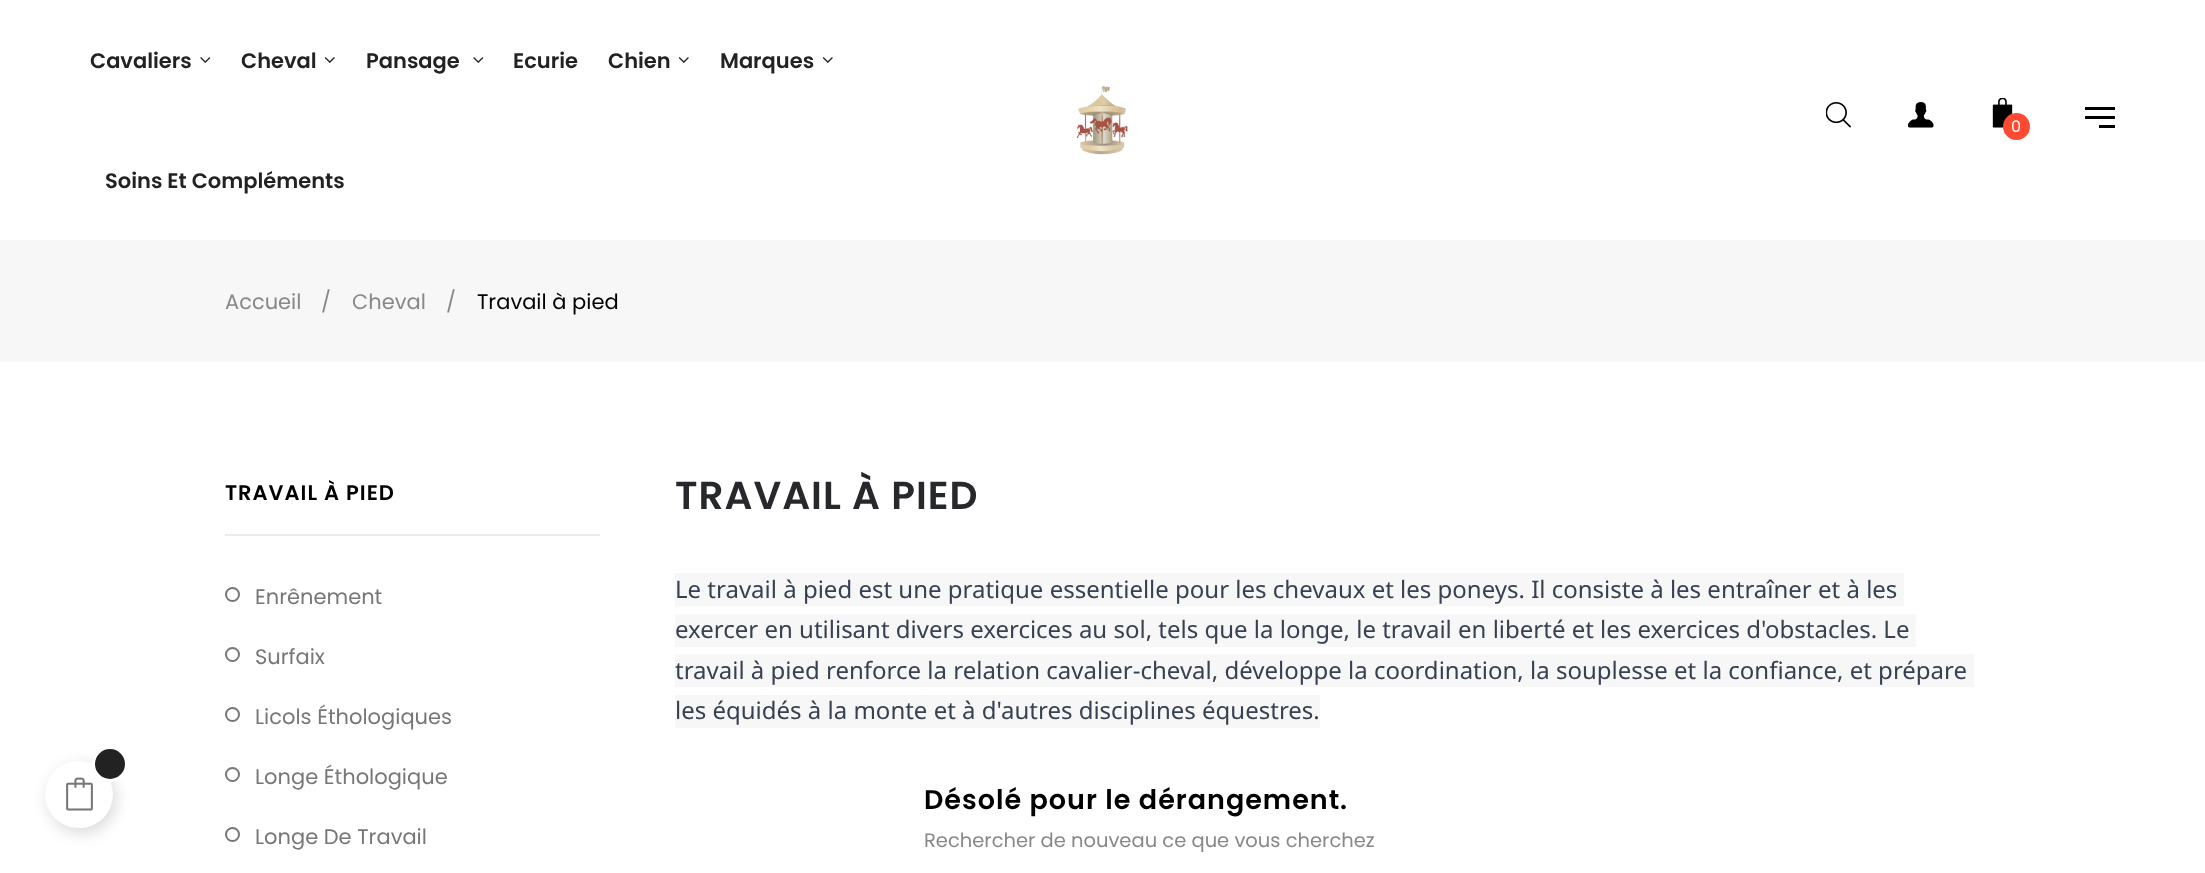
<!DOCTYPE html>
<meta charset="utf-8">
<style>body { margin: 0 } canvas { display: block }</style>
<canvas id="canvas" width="2205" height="873"></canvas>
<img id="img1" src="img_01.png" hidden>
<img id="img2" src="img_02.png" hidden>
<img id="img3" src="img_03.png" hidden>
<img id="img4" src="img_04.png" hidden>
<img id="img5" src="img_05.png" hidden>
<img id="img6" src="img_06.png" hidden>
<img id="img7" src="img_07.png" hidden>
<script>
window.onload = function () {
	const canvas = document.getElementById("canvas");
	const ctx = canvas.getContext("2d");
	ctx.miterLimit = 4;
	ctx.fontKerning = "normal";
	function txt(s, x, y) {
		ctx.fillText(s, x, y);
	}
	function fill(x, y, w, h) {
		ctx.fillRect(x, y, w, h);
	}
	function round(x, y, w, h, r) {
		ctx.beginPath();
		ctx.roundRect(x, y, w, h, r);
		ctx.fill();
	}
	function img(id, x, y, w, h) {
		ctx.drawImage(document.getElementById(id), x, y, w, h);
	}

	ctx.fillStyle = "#FFFFFF";
	fill(0, 0, 2205, 873);
	ctx.fillStyle = "rgba(0, 0, 0, 0.15)";
	ctx.filter = "blur(7.5px)";
	ctx.beginPath();
	ctx.roundRect(48, 765, 68, 68, 34);
	ctx.fill();
	ctx.filter = "none";
	ctx.fillStyle = "#FFFFFF";
	round(45, 761, 68, 67, 33.5);
	img("img1", 66, 777, 27, 34);
	ctx.beginPath();
	ctx.arc(110, 764, 16.5, 0, Math.PI * 2);
	ctx.strokeStyle = "#FFFFFF";
	ctx.lineWidth = 3;
	ctx.stroke();
	ctx.fillStyle = "#222222";
	ctx.beginPath();
	ctx.arc(110, 764, 15, 0, Math.PI * 2);
	ctx.fill();
	img("img2", 200, 57, 11, 6);
	img("img3", 324, 57, 11, 6);
	img("img2", 473, 57, 11, 6);
	img("img3", 678, 57, 11, 6);
	img("img3", 822, 57, 11, 6);
	img("img4", 1076, 86, 52, 69);
	img("img5", 1826, 102, 25, 26);
	img("img6", 1908, 102, 26, 26);
	img("img7", 1992, 98, 21, 30);
	ctx.fillStyle = "#FF4A32";
	ctx.beginPath();
	ctx.arc(2016.5, 126.5, 13.5, 0, Math.PI * 2);
	ctx.fill();
	ctx.fillStyle = "#000000";
	fill(2085, 107, 30, 3);
	fill(2085, 116, 30, 3);
	fill(2099, 125, 16, 3);
	ctx.fillStyle = "#F7F7F7";
	fill(0, 240, 2205, 122);
	ctx.fillStyle = "#EBEBEB";
	fill(225, 534, 375, 2);
	ctx.beginPath();
	ctx.arc(232.5, 594.5, 6.5, 0, Math.PI * 2);
	ctx.strokeStyle = "#777777";
	ctx.lineWidth = 2;
	ctx.stroke();
	ctx.beginPath();
	ctx.arc(232.5, 654.5, 6.5, 0, Math.PI * 2);
	ctx.stroke();
	ctx.beginPath();
	ctx.arc(232.5, 714.5, 6.5, 0, Math.PI * 2);
	ctx.stroke();
	ctx.beginPath();
	ctx.arc(232.5, 774.5, 6.5, 0, Math.PI * 2);
	ctx.stroke();
	ctx.beginPath();
	ctx.arc(232.5, 834.5, 6.5, 0, Math.PI * 2);
	ctx.stroke();
	ctx.fillStyle = "#F7F7F8";
	fill(675, 573, 1229, 33);
	fill(675, 614, 1241, 33);
	fill(675, 654, 1299, 33);
	fill(675, 695, 645, 33);
	ctx.font = "600 21px Poppins";
	ctx.fillStyle = "#222222";
	txt("Cavaliers", 90, 68);
	txt("Cheval", 241, 68);
	txt("Pansage", 366, 68);
	txt("Ecurie", 513, 68);
	txt("Chien", 608, 68);
	txt("Marques", 720, 68);
	txt("Soins Et Compléments", 105, 188);
	ctx.font = "16px Poppins";
	ctx.fillStyle = "#FFFFFF";
	txt("0", 2011, 132);
	ctx.font = "21px Poppins";
	ctx.fillStyle = "#888888";
	txt("Accueil", 225, 309);
	txt("/", 321, 309);
	txt("Cheval", 352, 309);
	txt("/", 446, 309);
	ctx.fillStyle = "#000000";
	txt("Travail à pied", 477, 309);
	ctx.letterSpacing = "1px";
	ctx.font = "600 21px Poppins";
	txt("TRAVAIL À PIED", 225, 500);
	ctx.letterSpacing = "0px";
	ctx.font = "21px Poppins";
	ctx.fillStyle = "#777777";
	txt("Enrênement", 255, 604);
	txt("Surfaix", 255, 664);
	txt("Licols Éthologiques", 255, 724);
	txt("Longe Éthologique", 255, 784);
	txt("Longe De Travail", 255, 844);
	ctx.letterSpacing = "1px";
	ctx.font = "600 39px Poppins";
	ctx.fillStyle = "#26282B";
	txt("TRAVAIL À PIED", 675, 509);
	ctx.letterSpacing = "0px";
	ctx.font = "24px Noto Sans";
	ctx.fillStyle = "#374151";
	txt("Le travail à pied est une pratique essentielle pour les chevaux et les poneys. Il consiste à les entraîner et à les", 675, 598);
	txt("exercer en utilisant divers exercices au sol, tels que la longe, le travail en liberté et les exercices d'obstacles. Le", 675, 638);
	txt("travail à pied renforce la relation cavalier-cheval, développe la coordination, la souplesse et la confiance, et prépare", 675, 679);
	txt("les équidés à la monte et à d'autres disciplines équestres.", 675, 719);
	ctx.letterSpacing = "1px";
	ctx.font = "600 27px Poppins";
	ctx.fillStyle = "#000000";
	txt("Désolé pour le dérangement.", 924, 809);
	ctx.letterSpacing = "0px";
	ctx.font = "19.5px Poppins";
	ctx.fillStyle = "#888888";
	txt("Rechercher de nouveau ce que vous cherchez", 924, 847);
};
</script>
